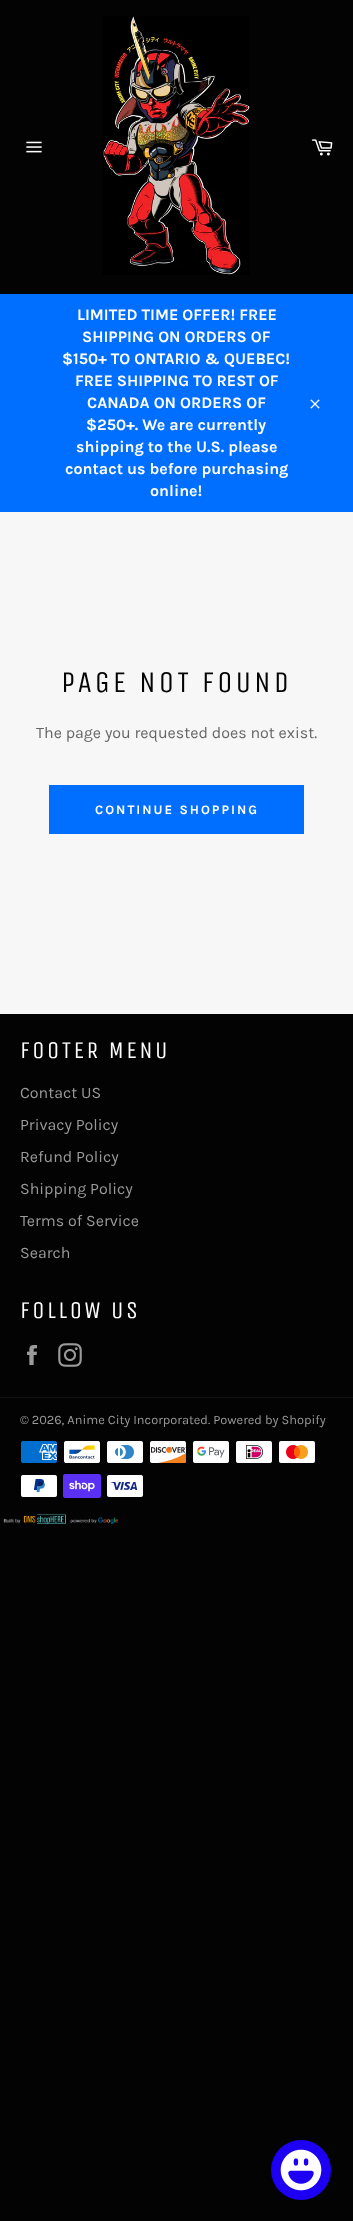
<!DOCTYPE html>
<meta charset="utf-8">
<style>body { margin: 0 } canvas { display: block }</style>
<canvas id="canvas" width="353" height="2221"></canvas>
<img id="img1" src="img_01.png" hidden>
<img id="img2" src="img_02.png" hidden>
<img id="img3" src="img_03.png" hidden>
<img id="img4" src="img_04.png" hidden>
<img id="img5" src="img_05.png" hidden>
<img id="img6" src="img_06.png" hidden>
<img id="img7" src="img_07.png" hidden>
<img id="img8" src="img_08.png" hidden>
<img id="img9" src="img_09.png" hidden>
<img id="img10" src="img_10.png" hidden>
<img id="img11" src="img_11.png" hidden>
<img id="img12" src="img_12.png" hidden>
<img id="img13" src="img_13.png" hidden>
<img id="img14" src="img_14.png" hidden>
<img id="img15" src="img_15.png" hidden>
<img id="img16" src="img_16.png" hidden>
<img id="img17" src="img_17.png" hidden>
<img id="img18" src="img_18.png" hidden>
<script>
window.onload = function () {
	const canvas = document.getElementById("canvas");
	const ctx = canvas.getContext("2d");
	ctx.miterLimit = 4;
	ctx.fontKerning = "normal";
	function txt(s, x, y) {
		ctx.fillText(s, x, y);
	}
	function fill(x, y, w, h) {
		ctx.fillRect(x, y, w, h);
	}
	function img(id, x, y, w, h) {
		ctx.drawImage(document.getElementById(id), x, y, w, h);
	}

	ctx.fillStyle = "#030303";
	fill(0, 0, 353, 2221);
	ctx.fillStyle = "#F7F7F7";
	fill(0, 512, 353, 502);
	img("img1", 26, 141, 16, 12);
	img("img2", 102, 16, 148, 259);
	img("img3", 311, 139, 22, 17);
	ctx.fillStyle = "#006EFF";
	fill(0, 294, 353, 218);
	img("img4", 310, 399, 10, 10);
	fill(49, 785, 255, 49);
	img("img5", 27, 1345, 10, 20);
	img("img6", 58, 1343, 24, 24);
	ctx.fillStyle = "#101010";
	fill(0, 1397, 353, 1);
	img("img7", 21, 1441, 36, 22);
	img("img8", 64, 1441, 36, 22);
	img("img9", 107, 1441, 36, 22);
	img("img10", 150, 1441, 37, 22);
	img("img11", 193, 1441, 36, 22);
	img("img12", 236, 1441, 36, 22);
	img("img13", 279, 1441, 36, 22);
	img("img14", 21, 1475, 36, 22);
	img("img15", 63, 1474, 38, 24);
	img("img16", 107, 1475, 36, 22);
	img("img17", 3, 1513, 115, 11);
	ctx.fillStyle = "#1D00F4";
	ctx.beginPath();
	ctx.arc(301, 2170, 30, 0, Math.PI * 2);
	ctx.fill();
	img("img18", 280, 2149, 42, 42);
	ctx.font = "bold 16px Karla";
	ctx.fillStyle = "#FFFFFF";
	txt("LIMITED TIME OFFER! FREE", 77, 320);
	txt("SHIPPING ON ORDERS OF", 82, 342);
	txt("$150+ TO ONTARIO & QUEBEC!", 62, 364);
	txt("FREE SHIPPING TO REST OF", 75, 386);
	txt("CANADA ON ORDERS OF", 87, 408);
	txt("$250+. We are currently", 86, 430);
	txt("shipping to the U.S. please", 76, 452);
	txt("contact us before purchasing", 65, 474);
	txt("online!", 150, 496);
	ctx.letterSpacing = "3px";
	ctx.font = "30px Unica One";
	ctx.fillStyle = "#030303";
	txt("PAGE NOT FOUND", 61, 692);
	ctx.letterSpacing = "0px";
	ctx.font = "16px Karla";
	ctx.fillStyle = "#666666";
	txt("The page you requested does not exist.", 36, 738);
	ctx.letterSpacing = "2px";
	ctx.font = "bold 13px Karla";
	ctx.fillStyle = "#FFFFFF";
	txt("CONTINUE SHOPPING", 95, 814);
	ctx.letterSpacing = "2.4px";
	ctx.font = "24px Unica One";
	txt("FOOTER MENU", 20, 1058);
	ctx.letterSpacing = "0px";
	ctx.font = "16px Karla";
	ctx.fillStyle = "#9A9A9A";
	txt("Contact US", 20, 1098);
	txt("Privacy Policy", 20, 1130);
	txt("Refund Policy", 20, 1162);
	txt("Shipping Policy", 20, 1194);
	txt("Terms of Service", 20, 1226);
	txt("Search", 20, 1258);
	ctx.letterSpacing = "2.4px";
	ctx.font = "24px Unica One";
	ctx.fillStyle = "#FFFFFF";
	txt("FOLLOW US", 20, 1318);
	ctx.letterSpacing = "0px";
	ctx.font = "12.8px Karla";
	ctx.fillStyle = "#9A9A9A";
	txt("© 2026, Anime City Incorporated. Powered by Shopify", 20, 1424);
};
</script>
